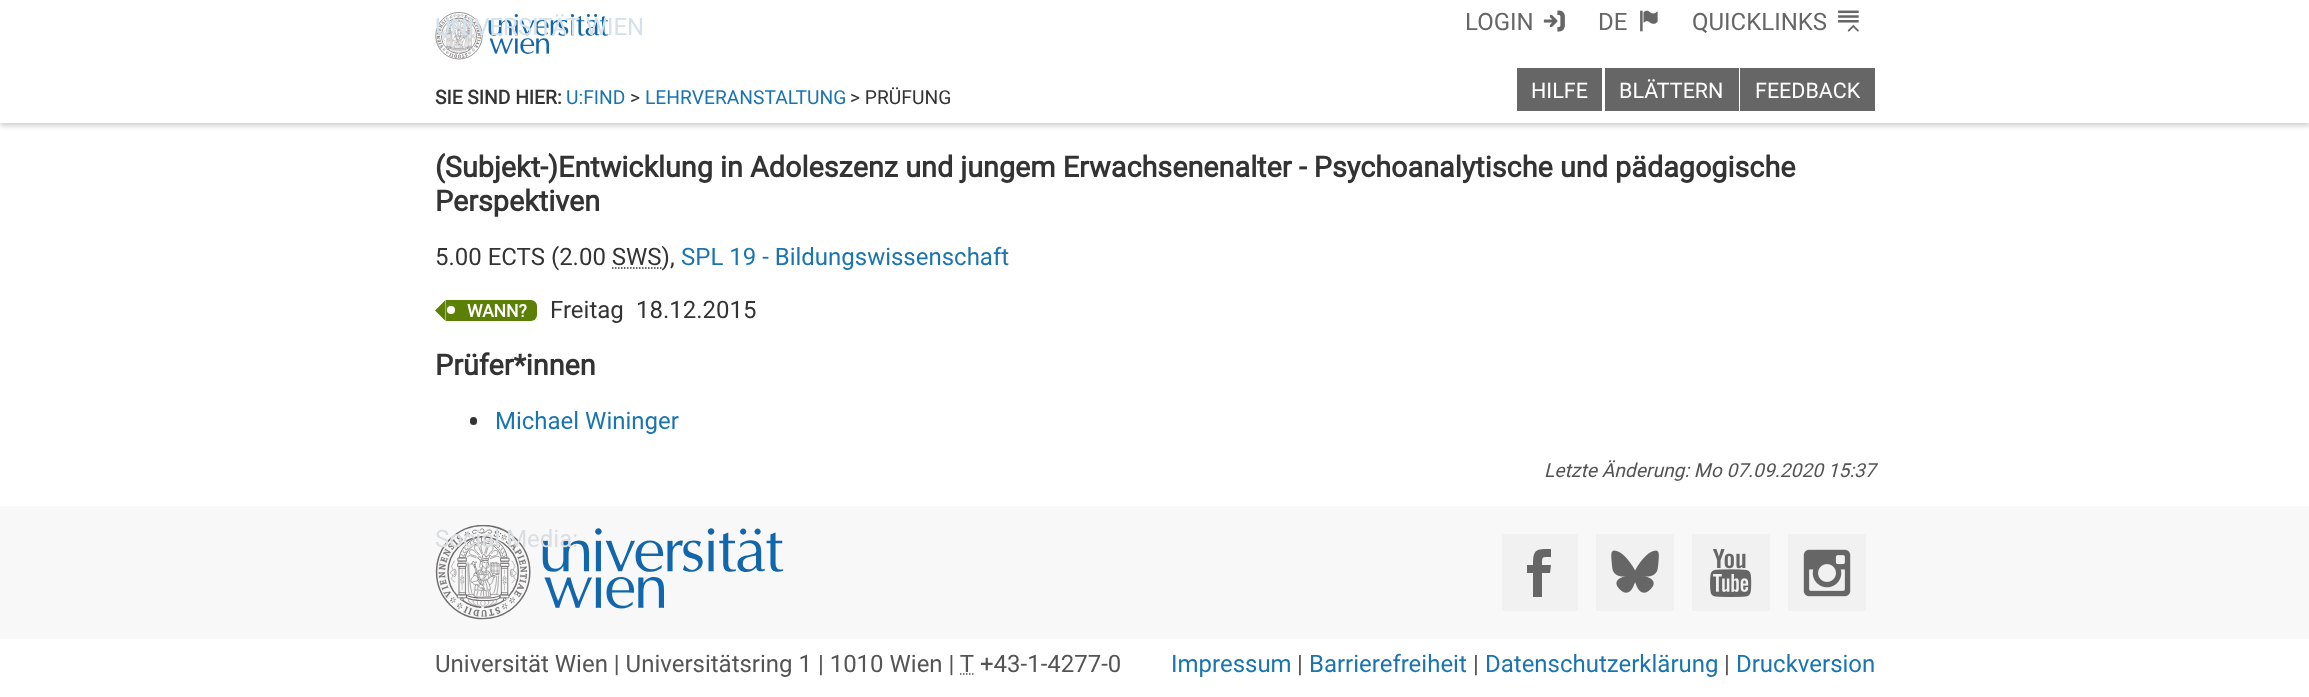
<!DOCTYPE html>
<meta charset="utf-8">
<style>body { margin: 0 } canvas { display: block }</style>
<canvas id="canvas" width="2309" height="697"></canvas>
<img id="img1" src="img_01.png" hidden>
<img id="img2" src="img_02.png" hidden>
<img id="img3" src="img_03.png" hidden>
<img id="img4" src="img_04.png" hidden>
<img id="img5" src="img_05.png" hidden>
<img id="img6" src="img_06.png" hidden>
<img id="img7" src="img_07.png" hidden>
<img id="img8" src="img_08.png" hidden>
<script>
window.onload = function () {
	const canvas = document.getElementById("canvas");
	const ctx = canvas.getContext("2d");
	ctx.miterLimit = 4;
	ctx.fontKerning = "normal";
	function txt(s, x, y) {
		ctx.fillText(s, x, y);
	}
	function fill(x, y, w, h) {
		ctx.fillRect(x, y, w, h);
	}
	function round(x, y, w, h, r) {
		ctx.beginPath();
		ctx.roundRect(x, y, w, h, r);
		ctx.fill();
	}
	function img(id, x, y, w, h) {
		ctx.drawImage(document.getElementById(id), x, y, w, h);
	}

	ctx.fillStyle = "#FFFFFF";
	fill(0, 0, 2309, 697);
	ctx.fillStyle = "rgba(0, 0, 0, 0.18)";
	ctx.filter = "blur(2.5px)";
	ctx.beginPath();
	ctx.rect(0, 3, 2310, 123);
	ctx.fill();
	ctx.filter = "none";
	ctx.fillStyle = "#FFFFFF";
	fill(0, 0, 2309, 123);
	img("img1", 435, 12, 174, 48);
	img("img2", 1543, 10, 22, 22);
	img("img3", 1640, 10, 18, 22);
	img("img4", 1838, 10, 21, 22);
	ctx.fillStyle = "#666666";
	fill(1517, 68, 85, 43);
	fill(1605, 68, 134, 43);
	fill(1740, 68, 135, 43);
	ctx.beginPath();
	ctx.moveTo(612, 268);
	ctx.lineTo(661.5, 268);
	ctx.strokeStyle = "#333333";
	ctx.lineWidth = 1.5;
	ctx.setLineDash([1.5, 1.5]);
	ctx.stroke();
	ctx.fillStyle = "#5C8006";
	ctx.beginPath();
	ctx.moveTo(445.5, 300);
	ctx.lineTo(445.5, 321);
	ctx.lineTo(435, 310.5);
	ctx.closePath();
	ctx.fill();
	ctx.beginPath();
	ctx.roundRect(446, 300, 91, 21, [0, 6, 6, 0]);
	ctx.fill();
	ctx.fillStyle = "#688D29";
	ctx.filter = "blur(2px)";
	ctx.beginPath();
	ctx.roundRect(446, 305, 7, 7, 3.5);
	ctx.fill();
	ctx.filter = "none";
	ctx.fillStyle = "#FFFFFF";
	ctx.beginPath();
	ctx.arc(451, 310, 4, 0, Math.PI * 2);
	ctx.fill();
	ctx.fillStyle = "#333333";
	round(470, 417, 7, 8, 3.5);
	ctx.fillStyle = "#F8F8F8";
	fill(0, 506, 2309, 133);
	img("img5", 435, 525, 349, 95);
	ctx.fillStyle = "#F1F1F1";
	fill(1502, 534, 76, 77);
	ctx.fillStyle = "#666666";
	ctx.beginPath();
	ctx.moveTo(1542, 565);
	ctx.bezierCurveTo(1542, 556, 1542, 557, 1551, 557);
	ctx.lineTo(1551, 549);
	ctx.bezierCurveTo(1536, 549, 1533, 549, 1533, 565);
	ctx.lineTo(1527, 565);
	ctx.lineTo(1527, 573);
	ctx.lineTo(1533, 573);
	ctx.lineTo(1533, 597);
	ctx.lineTo(1542, 597);
	ctx.lineTo(1542, 573);
	ctx.lineTo(1550, 573);
	ctx.lineTo(1551, 565);
	ctx.closePath();
	ctx.fill();
	ctx.fillStyle = "#F1F1F1";
	fill(1596, 534, 78, 77);
	img("img6", 1611, 550, 48, 43);
	fill(1692, 534, 78, 77);
	img("img7", 1710, 549, 42, 48);
	fill(1788, 534, 78, 77);
	img("img8", 1803, 549, 48, 48);
	ctx.beginPath();
	ctx.moveTo(960, 674);
	ctx.lineTo(973.5, 674);
	ctx.strokeStyle = "#545454";
	ctx.stroke();
	ctx.font = "24px Roboto";
	ctx.fillStyle = "#D4E0EA";
	txt("UNIVERSITÄT WIEN", 435, 35);
	ctx.fillStyle = "#666666";
	txt("LOGIN", 1465, 30);
	txt("DE", 1598, 30);
	txt("QUICKLINKS", 1692, 30);
	ctx.font = "21.5px Roboto";
	ctx.fillStyle = "#FFFFFF";
	txt("HILFE", 1531, 98);
	txt("BLÄTTERN", 1619, 98);
	txt("FEEDBACK", 1755, 98);
	ctx.font = "bold 19.25px Roboto";
	ctx.fillStyle = "#333333";
	txt("SIE SIND HIER:", 435, 104);
	ctx.font = "19.25px Roboto";
	ctx.fillStyle = "#1A74B0";
	txt("U:FIND", 566, 104);
	ctx.fillStyle = "#333333";
	txt(">", 630, 104);
	ctx.fillStyle = "#1A74B0";
	txt("LEHRVERANSTALTUNG", 645, 104);
	ctx.fillStyle = "#333333";
	txt("> PRÜFUNG", 850, 104);
	ctx.font = "bold 28.8px Roboto";
	txt("(Subjekt-)Entwicklung in Adoleszenz und jungem Erwachsenenalter - Psychoanalytische und pädagogische", 435, 177);
	txt("Perspektiven", 435, 211);
	ctx.font = "24px Roboto";
	txt("5.00 ECTS (2.00 SWS),", 435, 265);
	ctx.fillStyle = "#1A74B0";
	txt("SPL 19 - Bildungswissenschaft", 681, 265);
	ctx.font = "bold 17.5px Roboto";
	ctx.fillStyle = "#FFFFFF";
	txt("WANN?", 467, 317);
	ctx.font = "24px Roboto";
	ctx.fillStyle = "#333333";
	txt("Freitag", 550, 318);
	txt("18.12.2015", 636, 318);
	ctx.font = "bold 28.8px Roboto";
	txt("Prüfer*innen", 435, 375);
	ctx.font = "24px Roboto";
	ctx.fillStyle = "#1A74B0";
	txt("Michael Wininger", 495, 429);
	ctx.font = "italic 19.25px Roboto";
	ctx.fillStyle = "#545454";
	txt("Letzte Änderung: Mo 07.09.2020 15:37", 1544, 477);
	ctx.font = "24px Roboto";
	ctx.fillStyle = "#DBDEE1";
	txt("Social Media:", 435, 547);
	ctx.fillStyle = "#545454";
	txt("Universität Wien | Universitätsring 1 | 1010 Wien | T", 435, 672);
	txt("+43-1-4277-0", 980, 672);
	ctx.fillStyle = "#1A74B0";
	txt("Impressum", 1171, 672);
	ctx.fillStyle = "#545454";
	txt("|", 1297, 672);
	ctx.fillStyle = "#1A74B0";
	txt("Barrierefreiheit", 1309, 672);
	ctx.fillStyle = "#545454";
	txt("|", 1473, 672);
	ctx.fillStyle = "#1A74B0";
	txt("Datenschutzerklärung", 1485, 672);
	ctx.fillStyle = "#545454";
	txt("|", 1724, 672);
	ctx.fillStyle = "#1A74B0";
	txt("Druckversion", 1736, 672);
};
</script>
